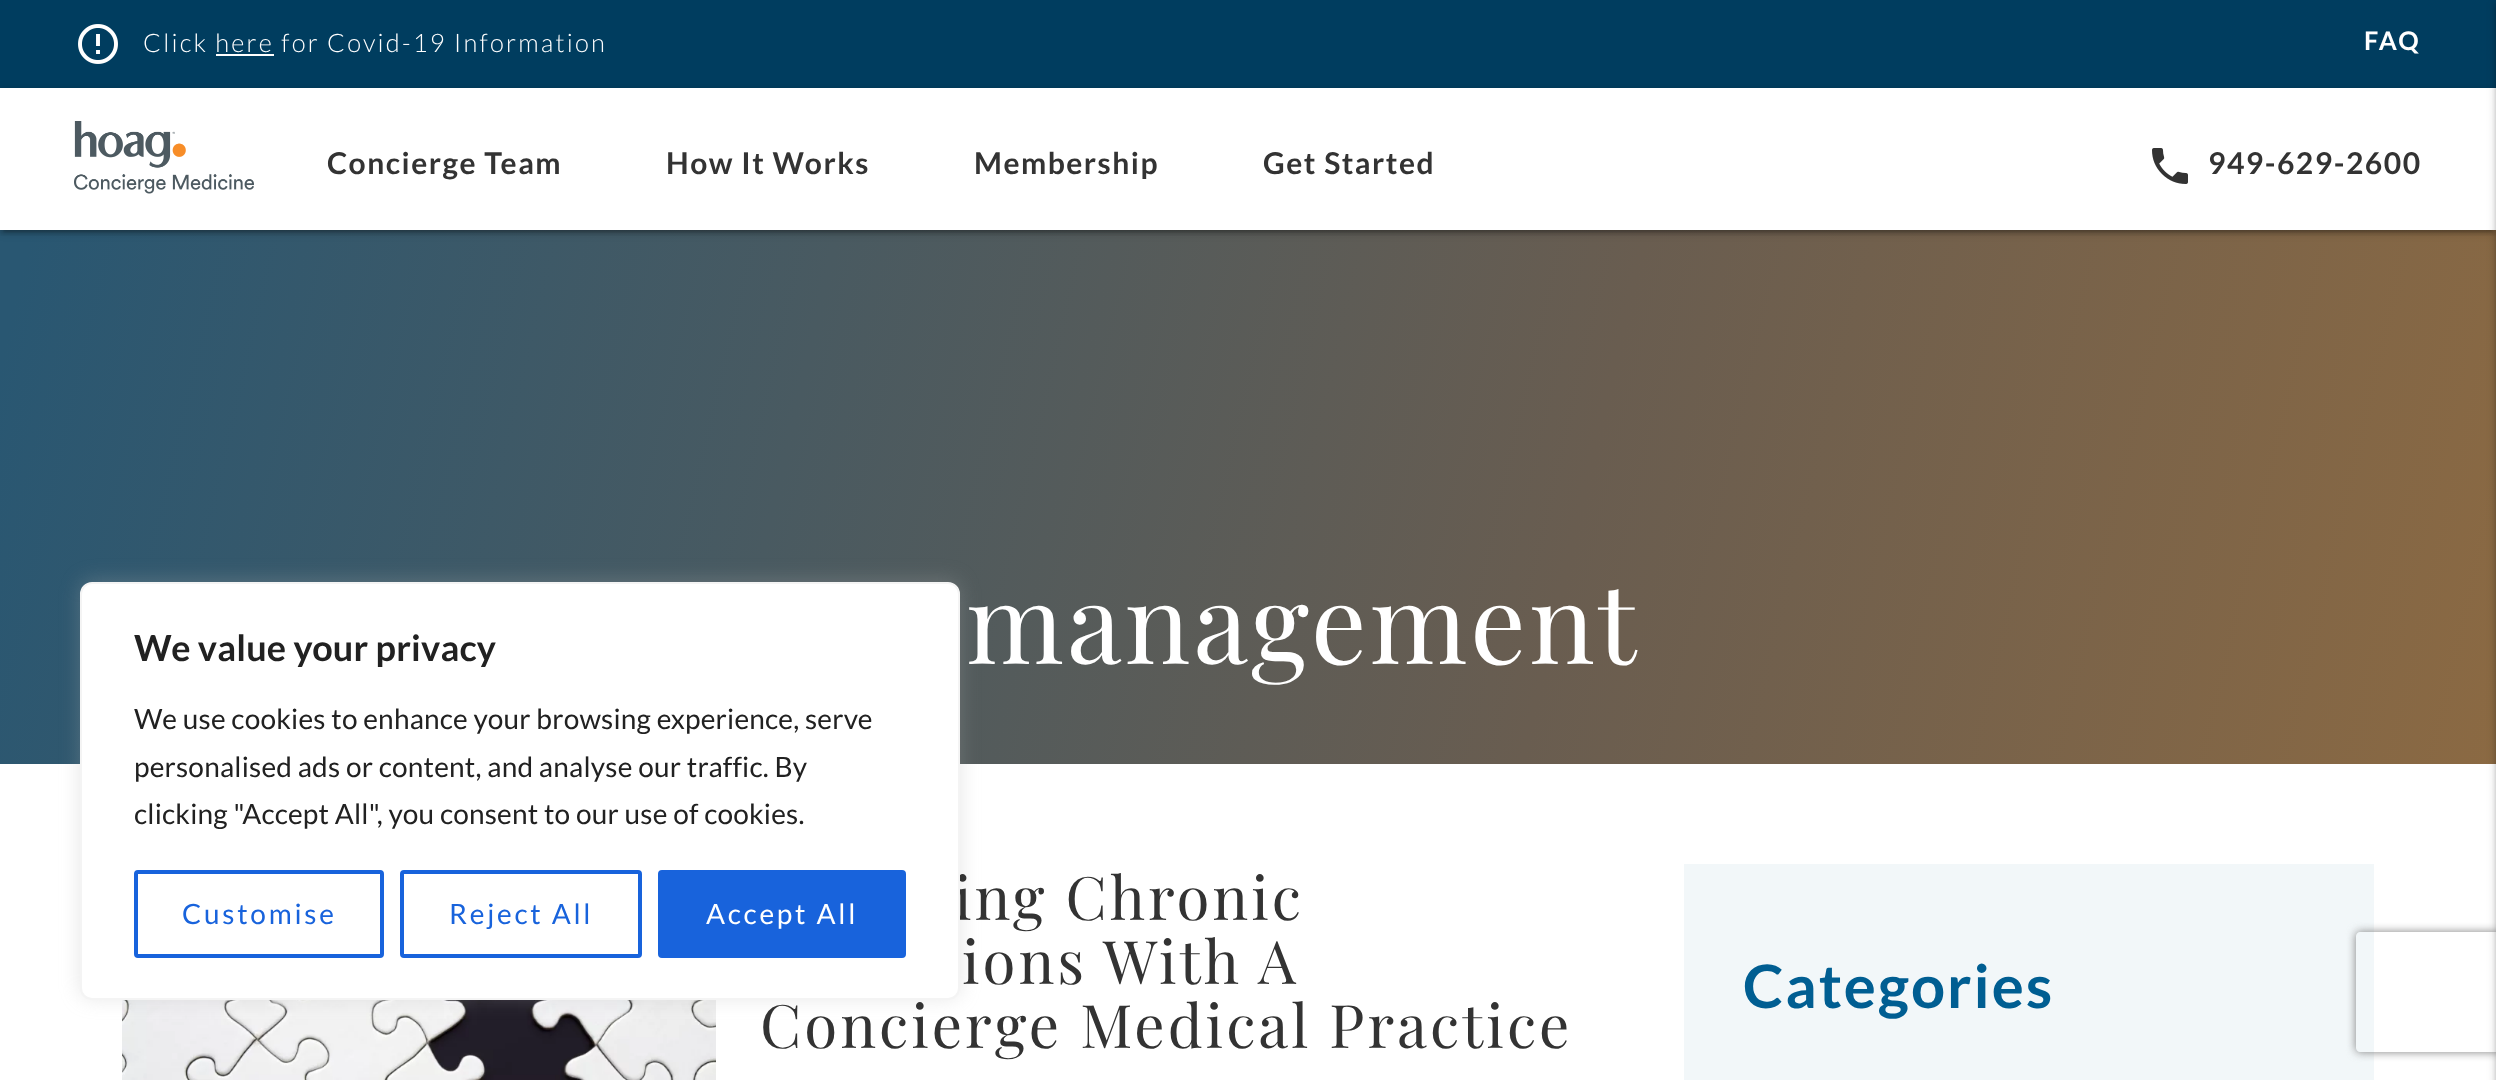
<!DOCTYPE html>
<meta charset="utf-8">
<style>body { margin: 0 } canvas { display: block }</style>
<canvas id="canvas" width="2496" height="1080"></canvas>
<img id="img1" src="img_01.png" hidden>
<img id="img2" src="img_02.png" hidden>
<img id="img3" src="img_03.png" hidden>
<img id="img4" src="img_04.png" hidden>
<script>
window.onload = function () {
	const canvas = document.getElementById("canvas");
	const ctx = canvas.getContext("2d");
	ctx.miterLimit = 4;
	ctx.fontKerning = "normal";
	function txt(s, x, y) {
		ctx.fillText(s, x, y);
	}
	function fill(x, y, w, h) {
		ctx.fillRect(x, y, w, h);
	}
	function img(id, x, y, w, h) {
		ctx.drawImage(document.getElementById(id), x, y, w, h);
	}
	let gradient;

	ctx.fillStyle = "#FFFFFF";
	fill(0, 0, 2496, 1080);
	ctx.fillStyle = "#003D5F";
	fill(0, 0, 2496, 88);
	img("img1", 78, 24, 40, 40);
	ctx.fillStyle = "#FFFFFF";
	fill(216, 54, 58, 2);
	gradient = ctx.createLinearGradient(5.5, 206, 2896, 882);
	gradient.addColorStop(0.01, "#295772");
	gradient.addColorStop(0.54, "#695D50");
	gradient.addColorStop(1, "#9A6F3D");
	ctx.fillStyle = gradient;
	fill(0, 230, 2496, 534);
	ctx.save();
	ctx.beginPath();
	ctx.moveTo(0, 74);
	ctx.lineTo(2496, 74);
	ctx.lineTo(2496, 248);
	ctx.lineTo(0, 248);
	ctx.closePath();
	ctx.moveTo(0, 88);
	ctx.lineTo(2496, 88);
	ctx.lineTo(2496, 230);
	ctx.lineTo(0, 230);
	ctx.closePath();
	ctx.clip("evenodd");
	ctx.fillStyle = "rgba(0, 0, 0, 0.2)";
	ctx.filter = "blur(5px)";
	ctx.beginPath();
	ctx.rect(0, 90, 2496, 142);
	ctx.fill();
	ctx.filter = "none";
	ctx.restore();
	ctx.save();
	ctx.beginPath();
	ctx.rect(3, 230, 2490, 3);
	ctx.clip();
	ctx.fillStyle = "rgba(0, 0, 0, 0.12)";
	ctx.filter = "blur(1px)";
	ctx.beginPath();
	ctx.rect(4, 98, 2488, 134);
	ctx.fill();
	ctx.filter = "none";
	ctx.restore();
	ctx.save();
	ctx.beginPath();
	ctx.rect(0, 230, 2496, 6);
	ctx.clip();
	ctx.fillStyle = "rgba(0, 0, 0, 0.14)";
	ctx.filter = "blur(2px)";
	ctx.beginPath();
	ctx.rect(0, 92, 2496, 142);
	ctx.fill();
	ctx.filter = "none";
	ctx.restore();
	img("img2", 74, 121, 180, 73);
	img("img3", 2152, 148, 36, 36);
	ctx.fillStyle = "rgba(0, 0, 0, 0.2)";
	ctx.filter = "blur(5px)";
	ctx.beginPath();
	ctx.rect(2496, 2, 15, 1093);
	ctx.fill();
	ctx.filter = "none";
	ctx.fillStyle = "rgba(0, 0, 0, 0.14)";
	ctx.filter = "blur(2px)";
	ctx.beginPath();
	ctx.rect(2496, 4, 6, 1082);
	ctx.fill();
	ctx.filter = "none";
	img("img4", 122, 1000, 594, 80);
	ctx.fillStyle = "#F2F7F9";
	fill(1684, 864, 690, 216);
	ctx.fillStyle = "rgba(172, 171, 171, 0.3)";
	ctx.filter = "blur(10px)";
	ctx.beginPath();
	ctx.roundRect(80, 580, 880, 418, 12);
	ctx.fill();
	ctx.filter = "none";
	ctx.save();
	ctx.beginPath();
	ctx.moveTo(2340, 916);
	ctx.lineTo(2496, 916);
	ctx.lineTo(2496, 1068);
	ctx.lineTo(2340, 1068);
	ctx.closePath();
	ctx.moveTo(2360, 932);
	ctx.lineTo(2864, 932);
	ctx.bezierCurveTo(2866, 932, 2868, 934, 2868, 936);
	ctx.lineTo(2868, 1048);
	ctx.bezierCurveTo(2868, 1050, 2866, 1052, 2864, 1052);
	ctx.lineTo(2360, 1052);
	ctx.bezierCurveTo(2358, 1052, 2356, 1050, 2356, 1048);
	ctx.lineTo(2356, 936);
	ctx.bezierCurveTo(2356, 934, 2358, 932, 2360, 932);
	ctx.closePath();
	ctx.clip("evenodd");
	ctx.fillStyle = "#808080";
	ctx.filter = "blur(5px)";
	ctx.beginPath();
	ctx.roundRect(2356, 932, 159, 120, 4);
	ctx.fill();
	ctx.filter = "none";
	ctx.restore();
	ctx.letterSpacing = "2.2px";
	ctx.font = "300 25.5px Lato";
	ctx.fillStyle = "#FFFFFF";
	txt("Click here for Covid-19 Information", 143, 52);
	ctx.font = "bold 25.5px Lato";
	txt("FAQ", 2364, 50);
	ctx.letterSpacing = "1.5px";
	ctx.font = "bold 30px Lato";
	ctx.fillStyle = "#333333";
	txt("Concierge Team", 327, 174);
	txt("How It Works", 666, 174);
	txt("Membership", 974, 174);
	txt("Get Started", 1263, 174);
	txt("949-629-2600", 2208, 174);
	ctx.letterSpacing = "3px";
	ctx.font = "110px Playfair Display";
	ctx.fillStyle = "#FFFFFF";
	txt("management", 966, 664);
	ctx.font = "60px Playfair Display";
	ctx.fillStyle = "#333333";
	txt("ing Chronic", 954, 920);
	txt("ions With A", 962, 984);
	txt("Concierge Medical Practice", 760, 1048);
	ctx.letterSpacing = "2px";
	ctx.font = "bold 60px Lato";
	ctx.fillStyle = "#005E92";
	txt("Categories", 1743, 1008);
	ctx.fillStyle = "#FFFFFF";
	ctx.beginPath();
	ctx.roundRect(81, 583, 878, 416, 11);
	ctx.fill();
	ctx.strokeStyle = "#F4F4F4";
	ctx.lineWidth = 2;
	ctx.stroke();
	ctx.letterSpacing = "0.2px";
	ctx.font = "bold 36px Lato";
	ctx.fillStyle = "#212121";
	txt("We value your privacy", 134, 661);
	ctx.font = "28px Lato";
	txt("We use cookies to enhance your browsing experience, serve", 134, 729);
	txt("personalised ads or content, and analyse our traffic. By", 134, 777);
	txt("clicking \"Accept All\", you consent to our use of cookies.", 134, 824);
	ctx.beginPath();
	ctx.roundRect(136, 872, 246, 84, 2);
	ctx.strokeStyle = "#1863DC";
	ctx.lineWidth = 4;
	ctx.stroke();
	ctx.letterSpacing = "2.75px";
	ctx.fillStyle = "#1863DC";
	txt("Customise", 182, 924);
	ctx.beginPath();
	ctx.roundRect(402, 872, 238, 84, 2);
	ctx.stroke();
	txt("Reject All", 449, 924);
	ctx.beginPath();
	ctx.roundRect(660, 872, 244, 84, 2);
	ctx.fill();
	ctx.stroke();
	ctx.fillStyle = "#FFFFFF";
	txt("Accept All", 706, 924);
};
</script>
